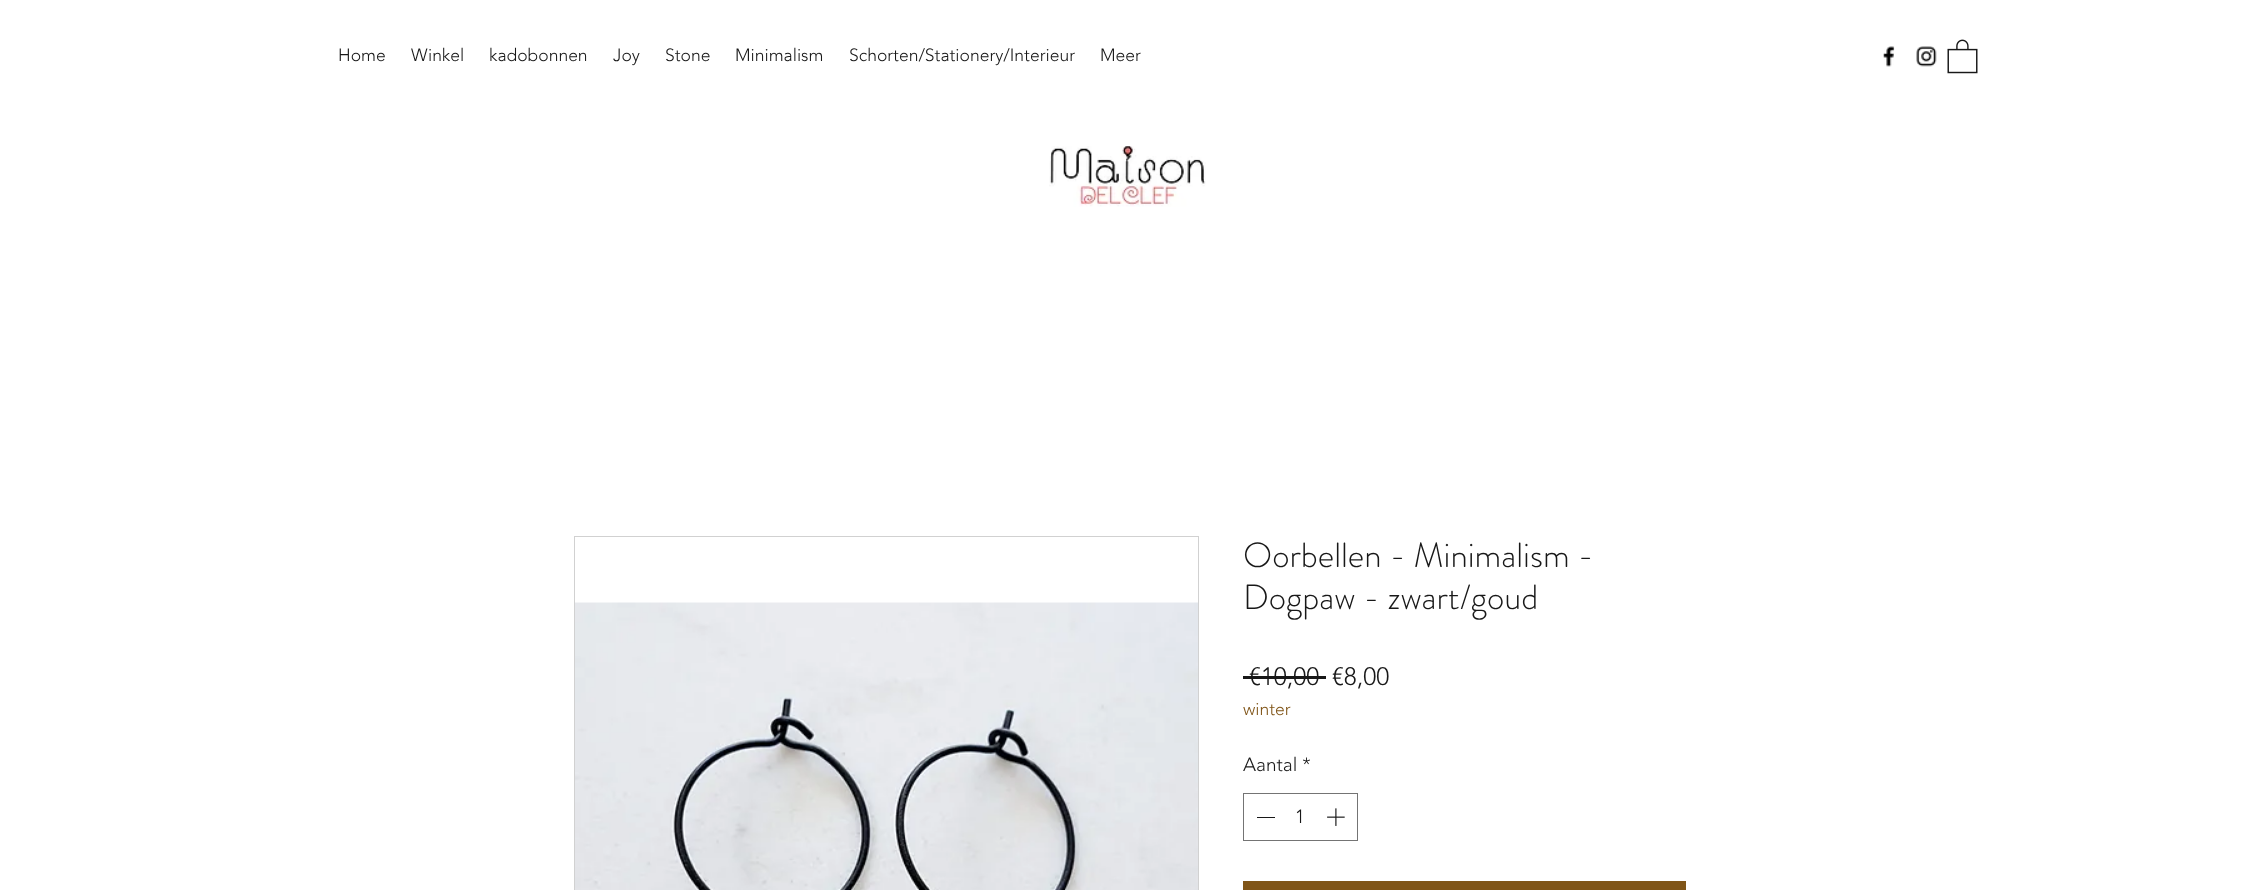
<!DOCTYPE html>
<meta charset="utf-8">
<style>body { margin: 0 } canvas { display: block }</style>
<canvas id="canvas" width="2260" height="890"></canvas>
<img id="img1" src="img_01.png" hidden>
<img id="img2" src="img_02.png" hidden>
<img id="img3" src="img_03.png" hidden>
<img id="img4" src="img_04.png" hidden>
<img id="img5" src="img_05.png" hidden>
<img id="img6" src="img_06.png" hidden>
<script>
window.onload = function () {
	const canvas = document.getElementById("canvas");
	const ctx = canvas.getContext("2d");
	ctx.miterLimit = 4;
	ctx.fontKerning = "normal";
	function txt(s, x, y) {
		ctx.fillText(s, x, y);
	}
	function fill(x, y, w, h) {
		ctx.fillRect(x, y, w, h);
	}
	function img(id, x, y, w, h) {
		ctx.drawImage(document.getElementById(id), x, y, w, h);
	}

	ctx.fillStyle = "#FFFFFF";
	fill(0, 0, 2260, 890);
	img("img1", 1883, 46, 12, 21);
	img("img2", 1916, 46, 21, 21);
	img("img3", 1947, 39, 31, 35);
	img("img4", 1049, 146, 157, 61);
	ctx.strokeStyle = "#D1D1D1";
	ctx.strokeRect(574.5, 536.5, 624, 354);
	img("img5", 575, 602, 623, 288);
	ctx.fillStyle = "#181818";
	fill(1243, 676, 83, 3);
	ctx.strokeStyle = "#747474";
	ctx.strokeRect(1243.5, 793.5, 114, 47);
	fill(1257, 817, 18, 1);
	img("img6", 1327, 808, 18, 18);
	ctx.fillStyle = "#805518";
	fill(1243, 881, 443, 9);
	ctx.font = "300 17.5px 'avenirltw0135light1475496'";
	ctx.fillStyle = "#181818";
	txt("Home", 338, 61);
	txt("Winkel", 411, 61);
	txt("kadobonnen", 489, 61);
	txt("Joy", 613, 61);
	txt("Stone", 665, 61);
	txt("Minimalism", 735, 61);
	txt("Schorten/Stationery/Interieur", 849, 61);
	txt("Meer", 1100, 61);
	ctx.font = "300 35px 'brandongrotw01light'";
	txt("Oorbellen - Minimalism -", 1243, 567);
	txt("Dogpaw - zwart/goud", 1243, 609);
	ctx.font = "300 25px 'avenirltw0135light1475496'";
	txt("€10,00", 1249, 685);
	txt("€8,00", 1332, 685);
	ctx.font = "300 17.5px 'avenirltw0135light1475496'";
	ctx.fillStyle = "#805518";
	txt("winter", 1243, 715);
	ctx.font = "300 19px 'avenirltw0135light1475496'";
	ctx.fillStyle = "#181818";
	txt("Aantal *", 1243, 771);
	txt("1", 1295, 823);
};
</script>
